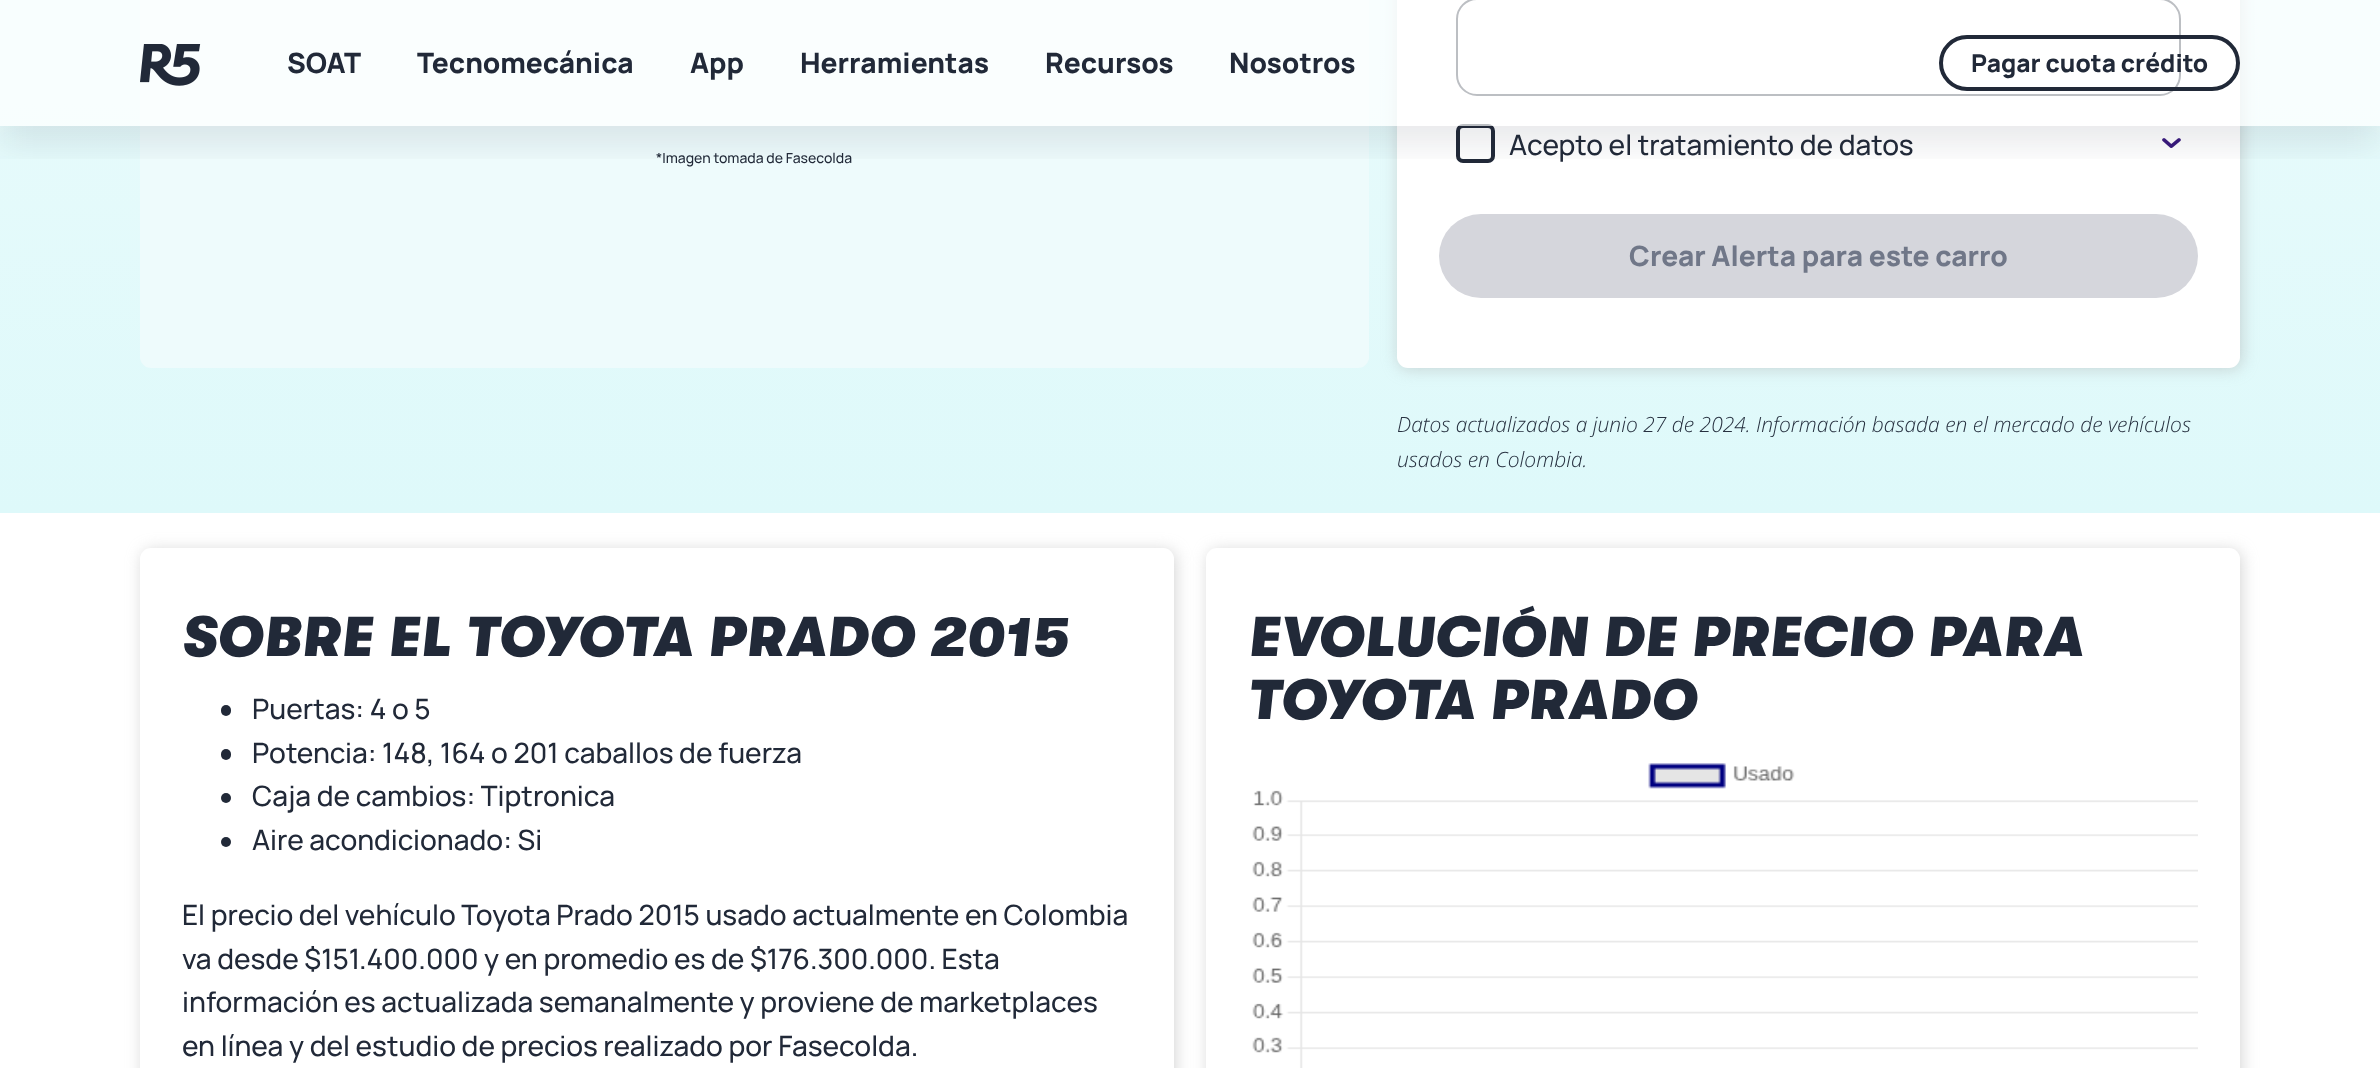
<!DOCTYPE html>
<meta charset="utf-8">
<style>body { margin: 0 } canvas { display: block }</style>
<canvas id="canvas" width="2380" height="1068"></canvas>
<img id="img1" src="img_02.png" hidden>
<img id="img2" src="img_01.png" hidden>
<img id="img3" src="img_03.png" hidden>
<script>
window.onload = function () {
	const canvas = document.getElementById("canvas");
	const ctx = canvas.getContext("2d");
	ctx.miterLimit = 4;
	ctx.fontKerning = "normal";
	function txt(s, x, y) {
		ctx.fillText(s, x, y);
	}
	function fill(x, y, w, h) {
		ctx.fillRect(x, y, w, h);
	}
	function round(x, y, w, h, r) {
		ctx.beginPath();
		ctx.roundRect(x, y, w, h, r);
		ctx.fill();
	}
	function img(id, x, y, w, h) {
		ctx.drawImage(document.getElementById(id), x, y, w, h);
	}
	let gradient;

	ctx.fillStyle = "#FFFFFF";
	fill(0, 0, 2380, 1068);
	gradient = ctx.createLinearGradient(1190, -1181, 1190, 513);
	gradient.addColorStop(0, "#FFFFFF");
	gradient.addColorStop(1, "#DEF9FA");
	ctx.fillStyle = gradient;
	fill(0, 0, 2380, 513);
	ctx.fillStyle = "#EEFBFC";
	round(140, -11, 1229, 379, 11);
	ctx.fillStyle = "rgba(168, 168, 168, 0.47)";
	ctx.filter = "blur(8px)";
	ctx.beginPath();
	ctx.roundRect(1398, -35, 844, 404, 11);
	ctx.fill();
	ctx.filter = "none";
	ctx.fillStyle = "#FFFFFF";
	round(1397, -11, 843, 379, 11);
	ctx.beginPath();
	ctx.roundRect(1457, -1, 723, 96, 20);
	ctx.strokeStyle = "#212938";
	ctx.lineWidth = 2;
	ctx.stroke();
	ctx.beginPath();
	ctx.roundRect(1458, 126, 35, 35, 5);
	ctx.lineWidth = 4;
	ctx.stroke();
	img("img1", 2162, 138, 19, 10);
	ctx.save();
	ctx.beginPath();
	ctx.rect(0, 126, 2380, 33);
	ctx.clip();
	ctx.fillStyle = "rgba(33, 41, 56, 0.1)";
	ctx.filter = "blur(17.5px)";
	ctx.beginPath();
	ctx.rect(0, 18, 2380, 126);
	ctx.fill();
	ctx.filter = "none";
	ctx.restore();
	ctx.fillStyle = "rgba(255, 255, 255, 0.7)";
	fill(0, 0, 2380, 126);
	img("img2", 140, 44, 61, 42);
	ctx.beginPath();
	ctx.roundRect(1941, 37, 297, 52, 26);
	ctx.stroke();
	ctx.fillStyle = "#D5D6DC";
	round(1439, 214, 759, 84, 42);
	ctx.fillStyle = "rgba(168, 168, 168, 0.47)";
	ctx.filter = "blur(8px)";
	ctx.beginPath();
	ctx.roundRect(142, 550, 1034, 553, 11);
	ctx.fill();
	ctx.filter = "none";
	ctx.fillStyle = "#FFFFFF";
	round(140, 548, 1034, 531, 11);
	ctx.fillStyle = "#212938";
	round(221, 705, 10, 11, 5);
	round(221, 749, 10, 11, 5);
	ctx.beginPath();
	ctx.arc(226, 798, 5, 0, Math.PI * 2);
	ctx.fill();
	ctx.beginPath();
	ctx.arc(226, 842, 5, 0, Math.PI * 2);
	ctx.fill();
	ctx.fillStyle = "rgba(168, 168, 168, 0.47)";
	ctx.filter = "blur(8px)";
	ctx.beginPath();
	ctx.roundRect(1208, 550, 1034, 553, 11);
	ctx.fill();
	ctx.filter = "none";
	ctx.fillStyle = "#FFFFFF";
	round(1206, 548, 1034, 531, 11);
	img("img3", 1252, 763, 946, 305);
	ctx.font = "800 28px Manrope";
	ctx.fillStyle = "#212938";
	txt("SOAT", 287, 73);
	txt("Tecnomecánica", 417, 73);
	txt("App", 690, 73);
	txt("Herramientas", 800, 73);
	txt("Recursos", 1045, 73);
	txt("Nosotros", 1229, 73);
	ctx.font = "800 24.5px Manrope";
	txt("Pagar cuota crédito", 1971, 72);
	ctx.font = "500 14px Manrope";
	txt("*Imagen tomada de Fasecolda", 656, 163);
	ctx.font = "500 28px Manrope";
	txt("Acepto el tratamiento de datos", 1509, 155);
	ctx.font = "800 28px Manrope";
	ctx.fillStyle = "#707788";
	txt("Crear Alerta para este carro", 1629, 266);
	ctx.font = "italic 300 21px Open Sans";
	ctx.fillStyle = "#273140";
	txt("Datos actualizados a junio 27 de 2024. Información basada en el mercado de vehículos", 1397, 432);
	txt("usados en Colombia.", 1397, 467);
	ctx.letterSpacing = "0.9px";
	ctx.font = "italic 900 56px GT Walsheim";
	ctx.fillStyle = "#212938";
	txt("SOBRE EL TOYOTA PRADO 2015", 182, 656);
	ctx.letterSpacing = "0px";
	ctx.font = "500 28px Manrope";
	txt("Puertas: 4 o 5", 252, 719);
	txt("Potencia: 148, 164 o 201 caballos de fuerza", 252, 763);
	txt("Caja de cambios: Tiptronica", 252, 806);
	txt("Aire acondicionado: Si", 252, 850);
	txt("El precio del vehículo Toyota Prado 2015 usado actualmente en Colombia", 182, 925);
	txt("va desde $151.400.000 y en promedio es de $176.300.000. Esta", 182, 969);
	txt("información es actualizada semanalmente y proviene de marketplaces", 182, 1012);
	txt("en línea y del estudio de precios realizado por Fasecolda.", 182, 1056);
	ctx.letterSpacing = "0.9px";
	ctx.font = "italic 900 56px GT Walsheim";
	txt("EVOLUCIÓN DE PRECIO PARA", 1248, 656);
	txt("TOYOTA PRADO", 1248, 719);
};
</script>
